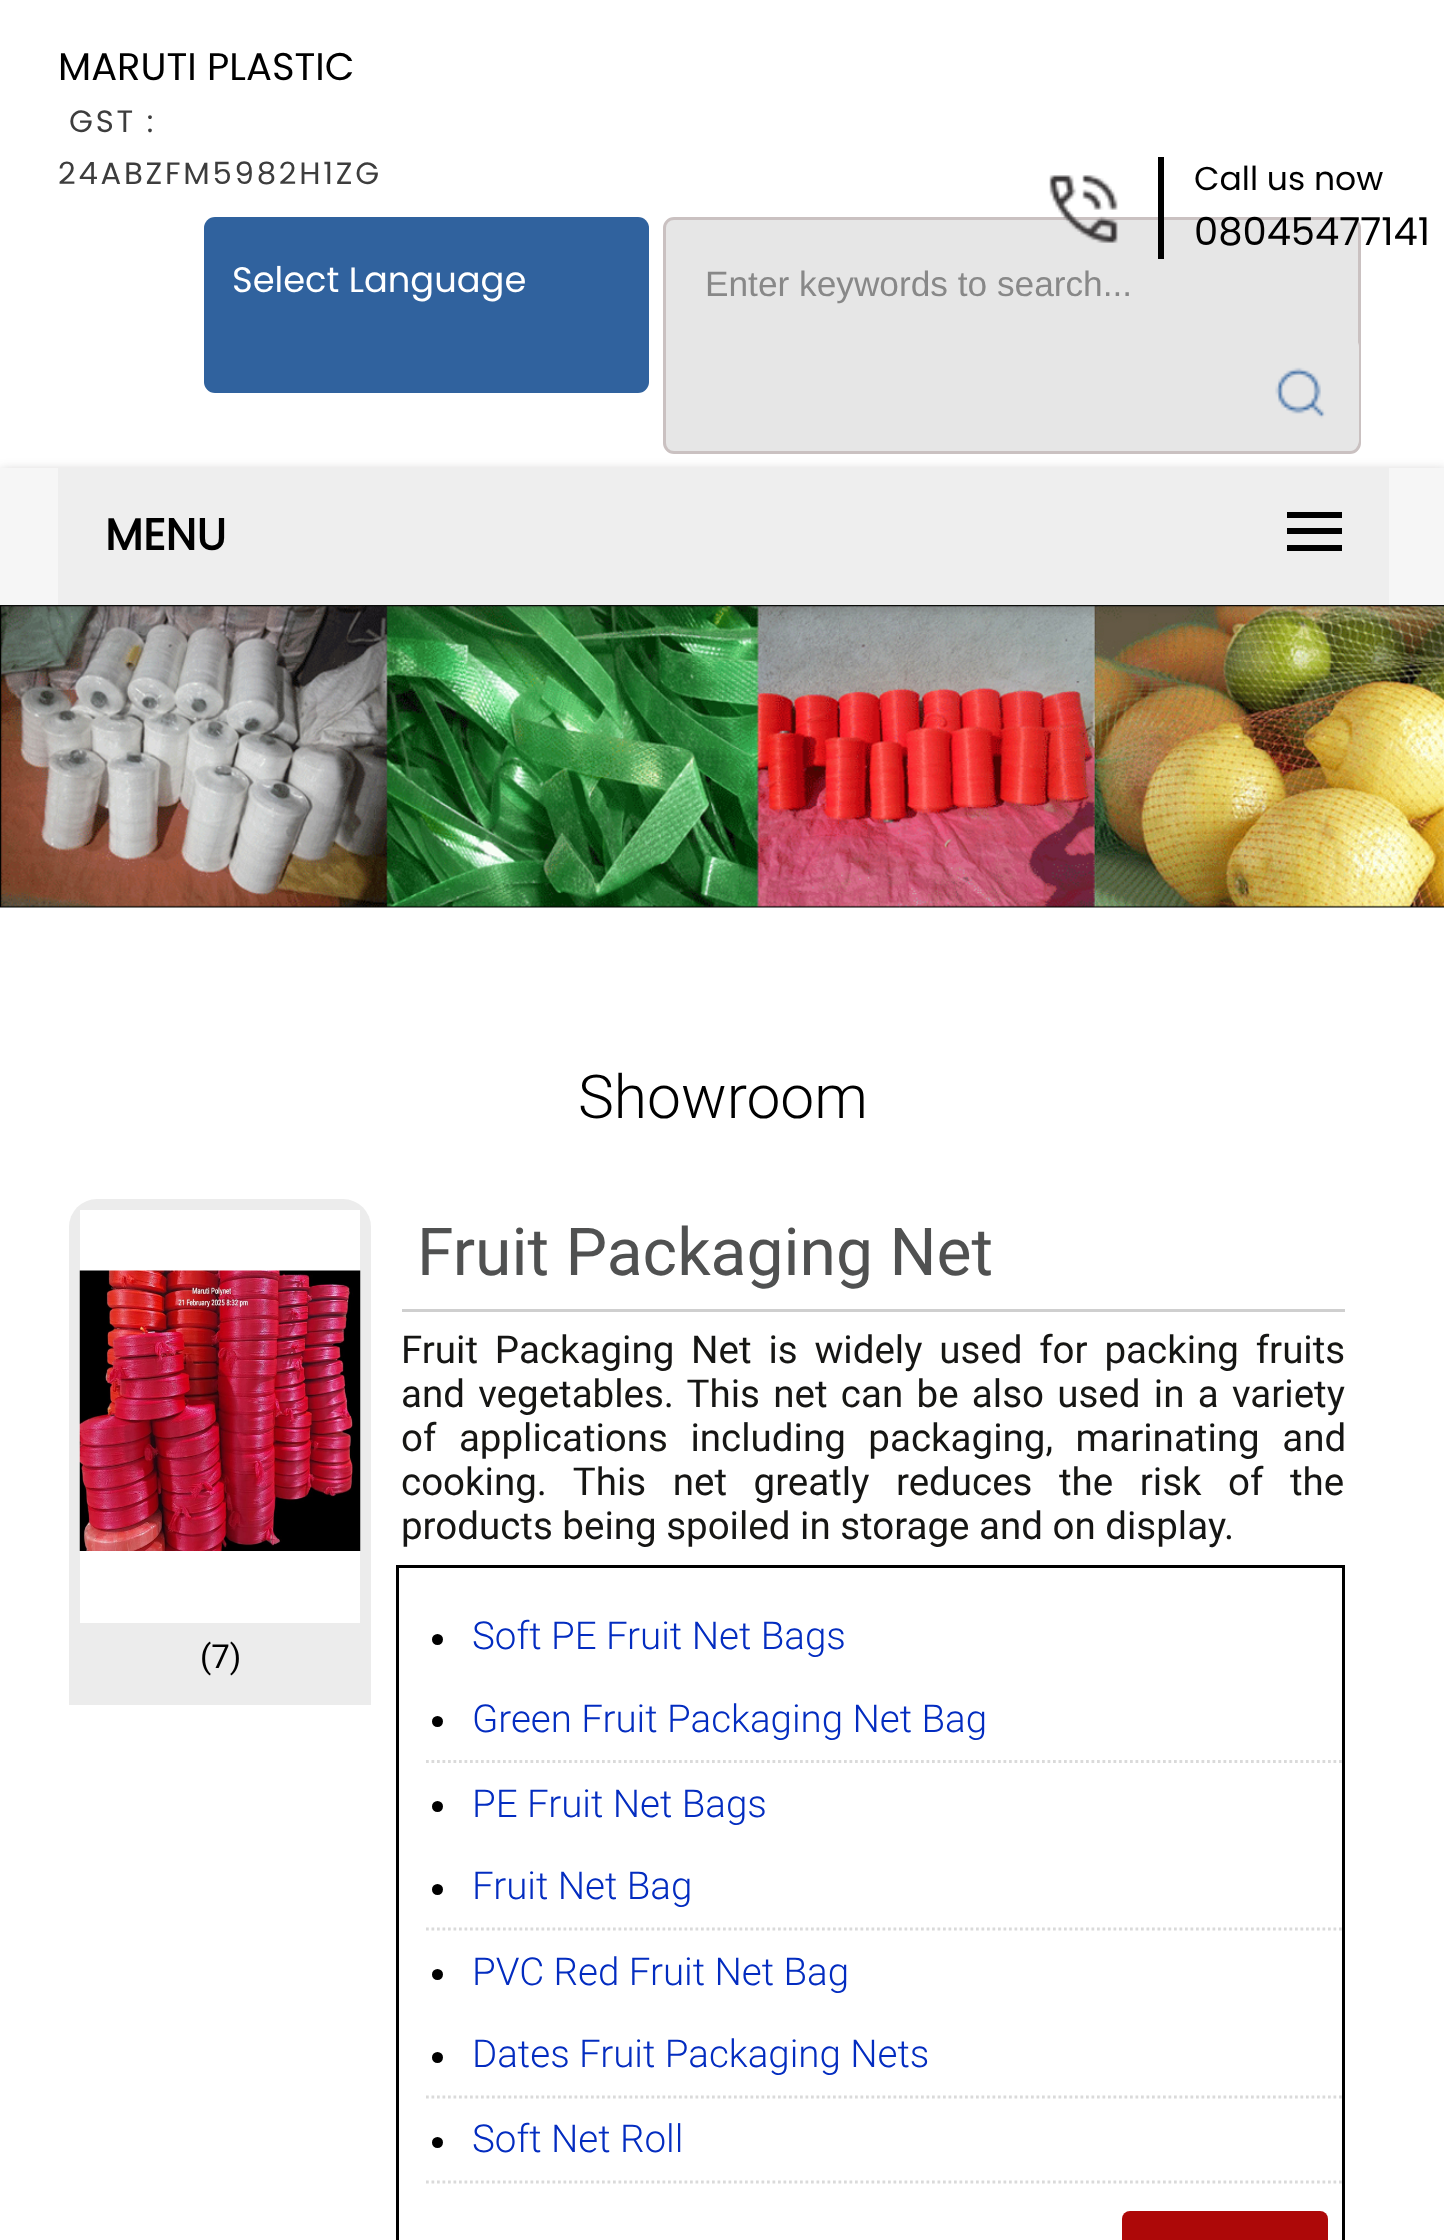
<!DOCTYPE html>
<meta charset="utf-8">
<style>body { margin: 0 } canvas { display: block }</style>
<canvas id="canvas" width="1444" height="2240"></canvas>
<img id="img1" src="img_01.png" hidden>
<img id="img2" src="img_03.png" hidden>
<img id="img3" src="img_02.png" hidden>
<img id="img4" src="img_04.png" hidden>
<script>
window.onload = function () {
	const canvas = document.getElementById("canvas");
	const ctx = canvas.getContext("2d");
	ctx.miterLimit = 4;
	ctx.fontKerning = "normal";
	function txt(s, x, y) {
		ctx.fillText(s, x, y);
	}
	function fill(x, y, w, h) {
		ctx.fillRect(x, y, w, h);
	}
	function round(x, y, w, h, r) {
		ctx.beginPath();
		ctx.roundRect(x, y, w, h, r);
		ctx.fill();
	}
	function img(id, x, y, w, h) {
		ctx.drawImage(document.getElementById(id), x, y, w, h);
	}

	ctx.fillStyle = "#FFFFFF";
	fill(0, 0, 1444, 2240);
	ctx.fillStyle = "#30629E";
	round(204, 217, 445, 176, 11);
	ctx.fillStyle = "#E6E6E6";
	ctx.beginPath();
	ctx.roundRect(664.5, 218.5, 695, 234, 9.5);
	ctx.fill();
	ctx.strokeStyle = "#CAC1C1";
	ctx.lineWidth = 3;
	ctx.stroke();
	round(1243, 336, 116, 115, 11);
	img("img1", 1275, 367, 51, 52);
	img("img2", 0, 605, 1444, 303);
	ctx.fillStyle = "rgba(56, 53, 53, 0.25)";
	ctx.filter = "blur(5.5px)";
	ctx.beginPath();
	ctx.rect(0, 470, 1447, 138);
	ctx.fill();
	ctx.filter = "none";
	ctx.fillStyle = "#F6F6F6";
	fill(0, 468, 1444, 137);
	img("img3", 1049, 175, 69, 68);
	ctx.fillStyle = "#000000";
	fill(1158, 157, 6, 102);
	ctx.fillStyle = "#EEEEEE";
	fill(58, 468, 1331, 137);
	ctx.fillStyle = "#000000";
	fill(1287, 512, 55, 6);
	fill(1287, 528, 55, 6);
	fill(1287, 545, 55, 6);
	ctx.fillStyle = "#CFCFCF";
	fill(402, 1309, 943, 3);
	ctx.fillStyle = "#ECECEC";
	ctx.beginPath();
	ctx.roundRect(69, 1199, 302, 506, [28, 28, 0, 0]);
	ctx.fill();
	ctx.fillStyle = "#FFFFFF";
	fill(80, 1210, 280, 413);
	img("img4", 79, 1270, 282, 281);
	ctx.strokeStyle = "#000000";
	ctx.strokeRect(397.5, 1566.5, 946, 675);
	ctx.beginPath();
	ctx.moveTo(426, 1761.5);
	ctx.lineTo(1342, 1761.5);
	ctx.strokeStyle = "#DADADA";
	ctx.lineWidth = 2.8;
	ctx.setLineDash([2.75, 2.75]);
	ctx.stroke();
	ctx.fillStyle = "#000000";
	ctx.beginPath();
	ctx.arc(437.5, 1639.5, 5.5, 0, Math.PI * 2);
	ctx.fill();
	ctx.beginPath();
	ctx.arc(437.5, 1721.5, 5.5, 0, Math.PI * 2);
	ctx.fill();
	ctx.beginPath();
	ctx.moveTo(426, 1929);
	ctx.lineTo(1342, 1929);
	ctx.stroke();
	ctx.beginPath();
	ctx.arc(437.5, 1806.5, 5.5, 0, Math.PI * 2);
	ctx.fill();
	ctx.beginPath();
	ctx.arc(437.5, 1889.5, 5.5, 0, Math.PI * 2);
	ctx.fill();
	ctx.beginPath();
	ctx.moveTo(426, 2097);
	ctx.lineTo(1342, 2097);
	ctx.stroke();
	ctx.beginPath();
	ctx.arc(437.5, 1974.5, 5.5, 0, Math.PI * 2);
	ctx.fill();
	ctx.beginPath();
	ctx.arc(437.5, 2057.5, 5.5, 0, Math.PI * 2);
	ctx.fill();
	ctx.beginPath();
	ctx.moveTo(426, 2182);
	ctx.lineTo(1342, 2182);
	ctx.stroke();
	ctx.beginPath();
	ctx.arc(437.5, 2142.5, 5.5, 0, Math.PI * 2);
	ctx.fill();
	ctx.fillStyle = "#AD0808";
	round(1122, 2211, 206, 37, 8);
	ctx.font = "38.5px Poppins";
	ctx.fillStyle = "#000000";
	txt("MARUTI PLASTIC", 58, 80);
	ctx.letterSpacing = "2.75px";
	ctx.font = "30.75px Poppins";
	ctx.fillStyle = "#3D3D3D";
	txt("GST :", 69, 132);
	txt("24ABZFM5982H1ZG", 58, 184);
	ctx.letterSpacing = "0px";
	ctx.font = "35.25px Poppins";
	ctx.fillStyle = "#FFFFFF";
	txt("Select Language", 232, 292);
	ctx.font = "35.25px Liberation Sans";
	ctx.fillStyle = "#888888";
	txt("Enter keywords to search...", 705, 296);
	ctx.font = "33px Poppins";
	ctx.fillStyle = "#000000";
	txt("Call us now", 1194, 190);
	ctx.font = "38.5px Poppins";
	txt("08045477141", 1194, 245);
	ctx.font = "bold 44px Poppins";
	txt("MENU", 105, 550);
	ctx.font = "300 60.5px Roboto";
	txt("Showroom", 578, 1118);
	ctx.font = "66px Roboto";
	ctx.fillStyle = "#505151";
	txt("Fruit Packaging Net", 417, 1275);
	ctx.wordSpacing = "7.25px";
	ctx.font = "38.5px Roboto";
	ctx.fillStyle = "#161614";
	txt("Fruit Packaging Net is widely used for packing fruits", 401, 1363);
	ctx.wordSpacing = "3.75px";
	txt("and vegetables. This net can be also used in a variety", 401, 1407);
	ctx.wordSpacing = "13px";
	txt("of applications including packaging, marinating and", 401, 1451);
	ctx.wordSpacing = "17px";
	txt("cooking. This net greatly reduces the risk of the", 401, 1495);
	ctx.wordSpacing = "0px";
	txt("products being spoiled in storage and on display.", 401, 1539);
	ctx.font = "33px Roboto";
	ctx.fillStyle = "#000000";
	txt("(7)", 200, 1668);
	ctx.font = "300 38.5px Roboto";
	ctx.fillStyle = "#032CC0";
	txt("Soft PE Fruit Net Bags", 472, 1649);
	txt("Green Fruit Packaging Net Bag", 472, 1732);
	txt("PE Fruit Net Bags", 472, 1817);
	txt("Fruit Net Bag", 472, 1899);
	txt("PVC Red Fruit Net Bag", 472, 1985);
	txt("Dates Fruit Packaging Nets", 472, 2067);
	txt("Soft Net Roll", 472, 2152);
};
</script>
